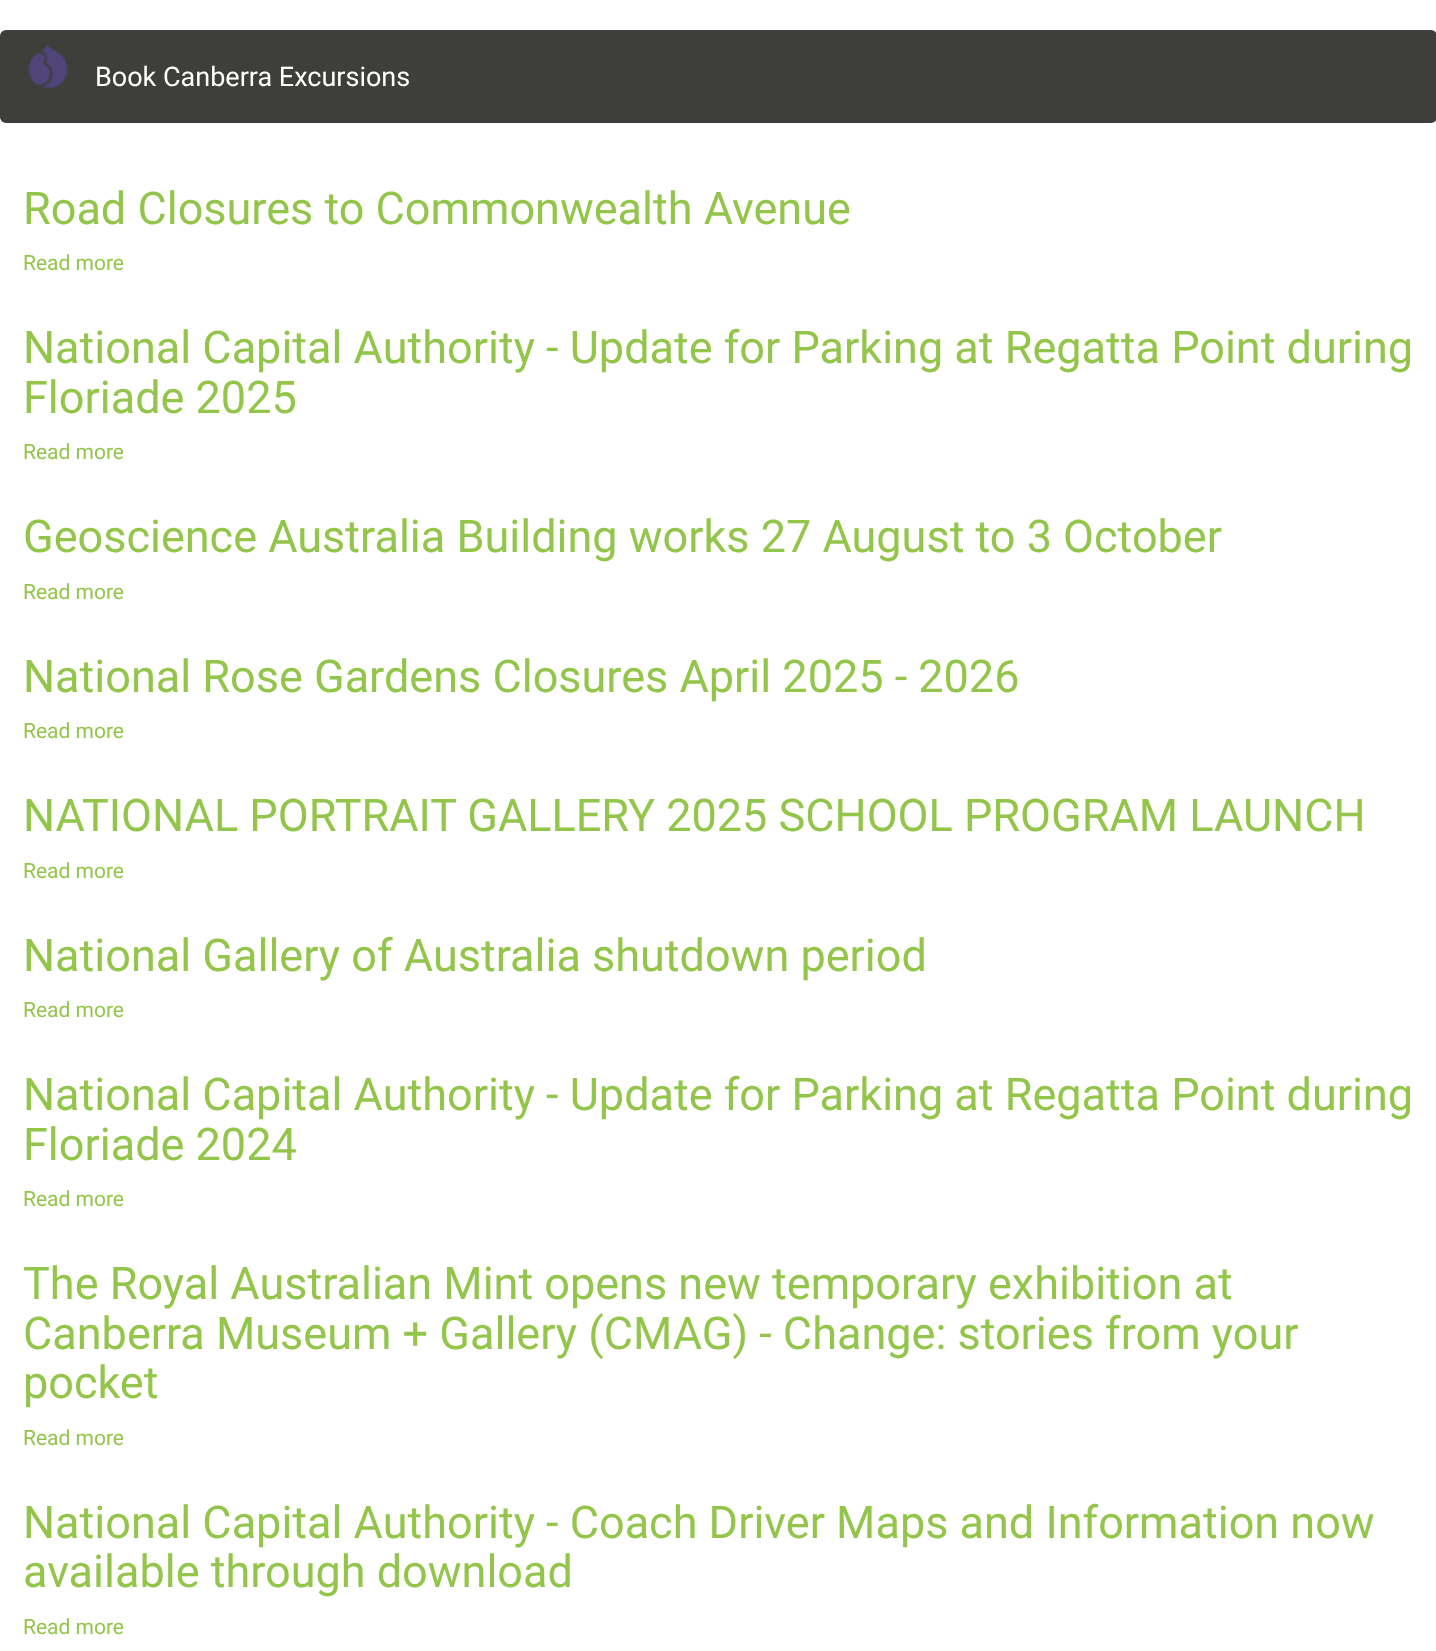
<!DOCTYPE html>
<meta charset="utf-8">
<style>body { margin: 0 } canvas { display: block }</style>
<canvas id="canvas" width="1436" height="1651"></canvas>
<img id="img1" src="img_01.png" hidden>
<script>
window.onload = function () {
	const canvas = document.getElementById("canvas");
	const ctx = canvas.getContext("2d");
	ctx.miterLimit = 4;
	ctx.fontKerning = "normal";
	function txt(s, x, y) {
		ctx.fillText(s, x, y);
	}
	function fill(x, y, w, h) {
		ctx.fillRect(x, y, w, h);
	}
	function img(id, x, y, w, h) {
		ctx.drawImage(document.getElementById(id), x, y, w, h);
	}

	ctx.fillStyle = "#FFFFFF";
	fill(0, 0, 1436, 1651);
	ctx.fillStyle = "#3E3F3A";
	ctx.beginPath();
	ctx.roundRect(1, 31, 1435, 91, 5);
	ctx.fill();
	ctx.strokeStyle = "#3E3F3A";
	ctx.lineWidth = 2;
	ctx.stroke();
	img("img1", 28, 44, 40, 45);
	ctx.font = "27px Roboto";
	ctx.fillStyle = "#FFFFFF";
	txt("Book Canberra Excursions", 95, 86);
	ctx.font = "45px Roboto";
	ctx.fillStyle = "#93C54B";
	txt("Road Closures to Commonwealth Avenue", 23, 224);
	ctx.font = "21px Roboto";
	txt("Read more", 23, 270);
	ctx.font = "45px Roboto";
	txt("National Capital Authority - Update for Parking at Regatta Point during", 23, 363);
	txt("Floriade 2025", 23, 413);
	ctx.font = "21px Roboto";
	txt("Read more", 23, 459);
	ctx.font = "45px Roboto";
	txt("Geoscience Australia Building works 27 August to 3 October", 23, 552);
	ctx.font = "21px Roboto";
	txt("Read more", 23, 599);
	ctx.font = "45px Roboto";
	txt("National Rose Gardens Closures April 2025 - 2026", 23, 692);
	ctx.font = "21px Roboto";
	txt("Read more", 23, 738);
	ctx.font = "45px Roboto";
	txt("NATIONAL PORTRAIT GALLERY 2025 SCHOOL PROGRAM LAUNCH", 23, 831);
	ctx.font = "21px Roboto";
	txt("Read more", 23, 878);
	ctx.font = "45px Roboto";
	txt("National Gallery of Australia shutdown period", 23, 971);
	ctx.font = "21px Roboto";
	txt("Read more", 23, 1017);
	ctx.font = "45px Roboto";
	txt("National Capital Authority - Update for Parking at Regatta Point during", 23, 1110);
	txt("Floriade 2024", 23, 1160);
	ctx.font = "21px Roboto";
	txt("Read more", 23, 1206);
	ctx.font = "45px Roboto";
	txt("The Royal Australian Mint opens new temporary exhibition at", 23, 1299);
	txt("Canberra Museum + Gallery (CMAG) - Change: stories from your", 23, 1349);
	txt("pocket", 23, 1398);
	ctx.font = "21px Roboto";
	txt("Read more", 23, 1445);
	ctx.font = "45px Roboto";
	txt("National Capital Authority - Coach Driver Maps and Information now", 23, 1538);
	txt("available through download", 23, 1587);
	ctx.font = "21px Roboto";
	txt("Read more", 23, 1634);
};
</script>
